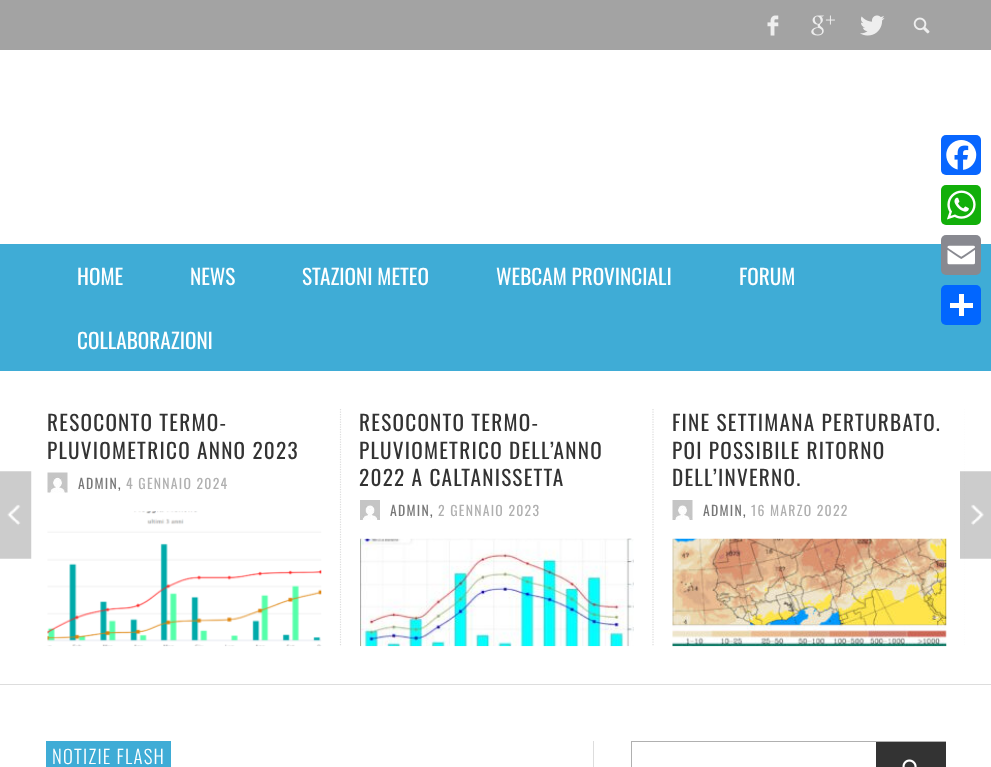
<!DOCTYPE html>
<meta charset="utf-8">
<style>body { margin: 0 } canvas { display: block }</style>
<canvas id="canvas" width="991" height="767"></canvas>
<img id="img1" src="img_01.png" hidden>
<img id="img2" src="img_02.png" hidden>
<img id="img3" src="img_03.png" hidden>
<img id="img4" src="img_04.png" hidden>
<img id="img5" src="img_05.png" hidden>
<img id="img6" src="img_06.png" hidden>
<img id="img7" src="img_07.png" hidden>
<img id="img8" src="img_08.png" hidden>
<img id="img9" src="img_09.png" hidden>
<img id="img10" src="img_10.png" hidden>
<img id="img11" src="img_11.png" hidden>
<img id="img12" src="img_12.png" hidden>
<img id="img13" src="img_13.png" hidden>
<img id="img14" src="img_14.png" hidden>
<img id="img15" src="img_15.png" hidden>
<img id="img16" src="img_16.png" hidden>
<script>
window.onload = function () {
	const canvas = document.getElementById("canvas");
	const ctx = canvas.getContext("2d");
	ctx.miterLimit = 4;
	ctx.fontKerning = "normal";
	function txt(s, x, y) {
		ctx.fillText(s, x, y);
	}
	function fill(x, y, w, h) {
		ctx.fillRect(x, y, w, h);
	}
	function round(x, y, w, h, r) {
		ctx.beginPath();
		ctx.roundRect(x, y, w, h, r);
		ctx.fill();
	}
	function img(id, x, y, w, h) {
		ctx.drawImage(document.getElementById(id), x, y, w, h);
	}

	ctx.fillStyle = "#FFFFFF";
	fill(0, 0, 991, 767);
	ctx.fillStyle = "#0866FF";
	round(941, 135, 40, 40, 5);
	img("img1", 946, 140, 31, 30);
	ctx.fillStyle = "#12AF0A";
	round(941, 185, 40, 40, 5);
	img("img2", 947, 190, 29, 30);
	ctx.fillStyle = "#3FACD6";
	fill(0, 244, 991, 127);
	ctx.fillStyle = "#888990";
	round(941, 235, 40, 40, 5);
	img("img3", 947, 245, 28, 20);
	ctx.fillStyle = "#0166FF";
	round(941, 285, 40, 40, 5);
	ctx.fillStyle = "#FFFFFF";
	fill(959, 294, 5, 22);
	fill(950, 303, 23, 5);
	ctx.fillStyle = "#A3A3A3";
	fill(0, 0, 991, 50);
	img("img4", 767, 15, 12, 21);
	img("img5", 811, 15, 24, 21);
	img("img6", 860, 15, 25, 21);
	img("img7", 913, 17, 17, 17);
	ctx.fillStyle = "#DDDDDD";
	fill(0, 684, 991, 1);
	img("img8", 0, 471, 32, 88);
	img("img9", 47, 472, 21, 21);
	img("img10", 47, 511, 275, 136);
	ctx.beginPath();
	ctx.moveTo(340.5, 409);
	ctx.lineTo(340.5, 646);
	ctx.strokeStyle = "#DDDDDD";
	ctx.lineWidth = 1.2;
	ctx.setLineDash([1.25, 1.25]);
	ctx.stroke();
	img("img11", 360, 500, 20, 20);
	img("img12", 360, 538, 274, 109);
	ctx.beginPath();
	ctx.moveTo(653, 409);
	ctx.lineTo(653, 646);
	ctx.stroke();
	img("img13", 672, 500, 21, 20);
	img("img14", 672, 538, 275, 109);
	ctx.save();
	ctx.beginPath();
	ctx.rect(28, 409, 937, 237);
	ctx.clip();
	ctx.beginPath();
	ctx.moveTo(965.5, 409);
	ctx.lineTo(965.5, 646);
	ctx.stroke();
	ctx.restore();
	img("img15", 960, 471, 31, 88);
	ctx.fillStyle = "#3FACD6";
	fill(46, 741, 125, 26);
	ctx.fillStyle = "#DDDDDD";
	fill(593, 741, 1, 26);
	ctx.strokeStyle = "#B0B0B0";
	ctx.lineWidth = 1;
	ctx.setLineDash([]);
	ctx.strokeRect(631.5, 741.5, 314, 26);
	ctx.fillStyle = "#333333";
	fill(876, 742, 70, 25);
	img("img16", 902, 759, 15, 8);
	ctx.font = "21.25px Oswald";
	ctx.fillStyle = "#FFFFFF";
	txt("HOME", 77, 285);
	txt("NEWS", 190, 285);
	txt("STAZIONI METEO", 302, 285);
	txt("WEBCAM PROVINCIALI", 496, 285);
	txt("FORUM", 739, 285);
	txt("COLLABORAZIONI", 77, 349);
	ctx.letterSpacing = "1.25px";
	ctx.fillStyle = "#333333";
	txt("RESOCONTO TERMO-", 47, 431);
	txt("PLUVIOMETRICO ANNO 2023", 47, 459);
	ctx.font = "13.75px Oswald";
	ctx.fillStyle = "#777777";
	txt("ADMIN", 78, 489);
	ctx.fillStyle = "#666666";
	txt(",", 118, 489);
	ctx.fillStyle = "#B0B0B0";
	txt("4 GENNAIO 2024", 126, 489);
	ctx.font = "21.25px Oswald";
	ctx.fillStyle = "#333333";
	txt("RESOCONTO TERMO-", 359, 431);
	txt("PLUVIOMETRICO DELL’ANNO", 359, 459);
	txt("2022 A CALTANISSETTA", 359, 486);
	ctx.font = "13.75px Oswald";
	ctx.fillStyle = "#777777";
	txt("ADMIN", 390, 516);
	ctx.fillStyle = "#666666";
	txt(",", 430, 516);
	ctx.fillStyle = "#B0B0B0";
	txt("2 GENNAIO 2023", 438, 516);
	ctx.font = "21.25px Oswald";
	ctx.fillStyle = "#333333";
	txt("FINE SETTIMANA PERTURBATO.", 672, 431);
	txt("POI POSSIBILE RITORNO", 672, 459);
	txt("DELL’INVERNO.", 672, 486);
	ctx.font = "13.75px Oswald";
	ctx.fillStyle = "#777777";
	txt("ADMIN", 703, 516);
	ctx.fillStyle = "#666666";
	txt(",", 743, 516);
	ctx.fillStyle = "#B0B0B0";
	txt("16 MARZO 2022", 751, 516);
	ctx.font = "300 18.75px Oswald";
	ctx.fillStyle = "#FFFFFF";
	txt("NOTIZIE FLASH", 52, 764);
};
</script>
